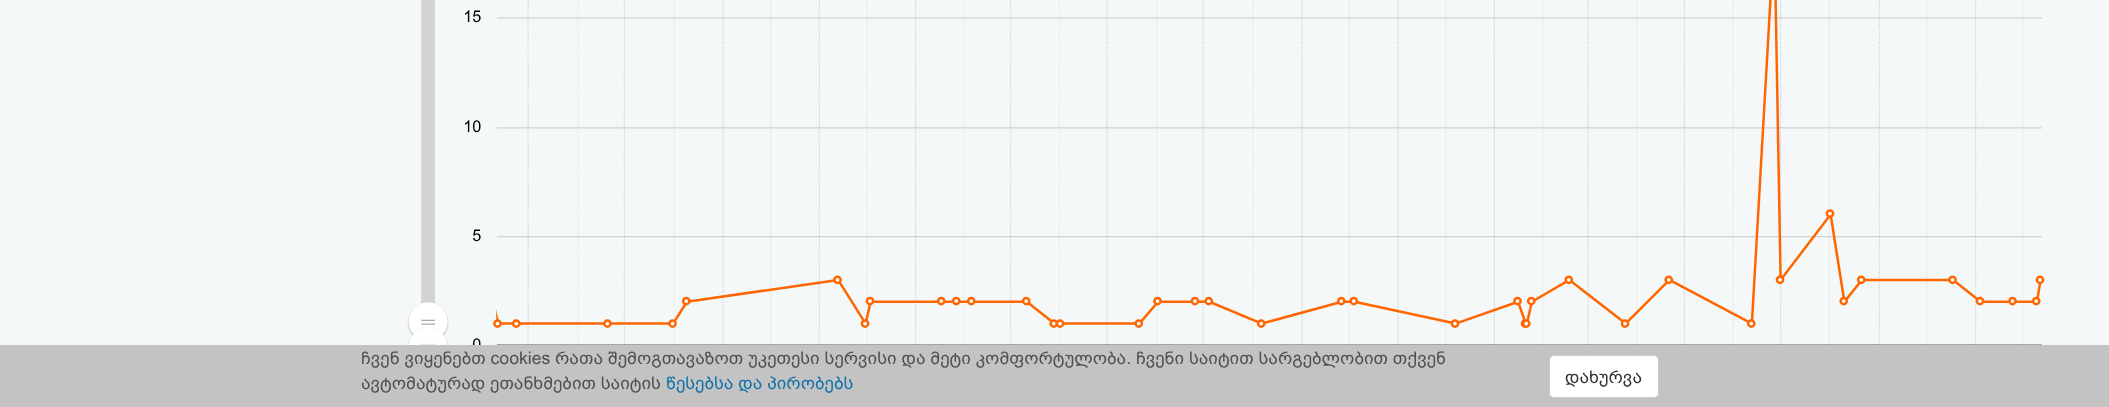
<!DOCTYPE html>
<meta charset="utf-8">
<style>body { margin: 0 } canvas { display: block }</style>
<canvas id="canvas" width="2109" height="407"></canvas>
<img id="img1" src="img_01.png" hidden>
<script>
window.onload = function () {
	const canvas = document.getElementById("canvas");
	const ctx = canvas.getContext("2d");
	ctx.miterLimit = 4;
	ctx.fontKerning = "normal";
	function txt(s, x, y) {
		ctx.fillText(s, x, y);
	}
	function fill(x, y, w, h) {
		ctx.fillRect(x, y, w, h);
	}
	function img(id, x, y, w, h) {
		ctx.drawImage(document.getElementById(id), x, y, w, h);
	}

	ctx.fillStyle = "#F4F8F9";
	fill(0, 0, 2109, 407);
	img("img1", 407, 0, 1638, 345);
	ctx.fillStyle = "#C3C3C3";
	fill(0, 345, 2109, 62);
	ctx.fillStyle = "#FFFFFF";
	ctx.beginPath();
	ctx.roundRect(1549.5, 355.5, 109, 42, 4.5);
	ctx.fill();
	ctx.strokeStyle = "#CCCCCC";
	ctx.stroke();
	ctx.font = "17.5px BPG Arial";
	ctx.fillStyle = "#4F4F4F";
	txt("ჩვენ ვიყენებთ cookies რათა შემოგთავაზოთ უკეთესი სერვისი და მეტი კომფორტულობა. ჩვენი საიტით სარგებლობით თქვენ", 361, 364);
	txt("ავტომატურად ეთანხმებით საიტის", 361, 389);
	ctx.fillStyle = "#0E71A9";
	txt("წესებსა და პირობებს", 666, 389);
	ctx.fillStyle = "#333333";
	txt("დახურვა", 1565, 383);
};
</script>
